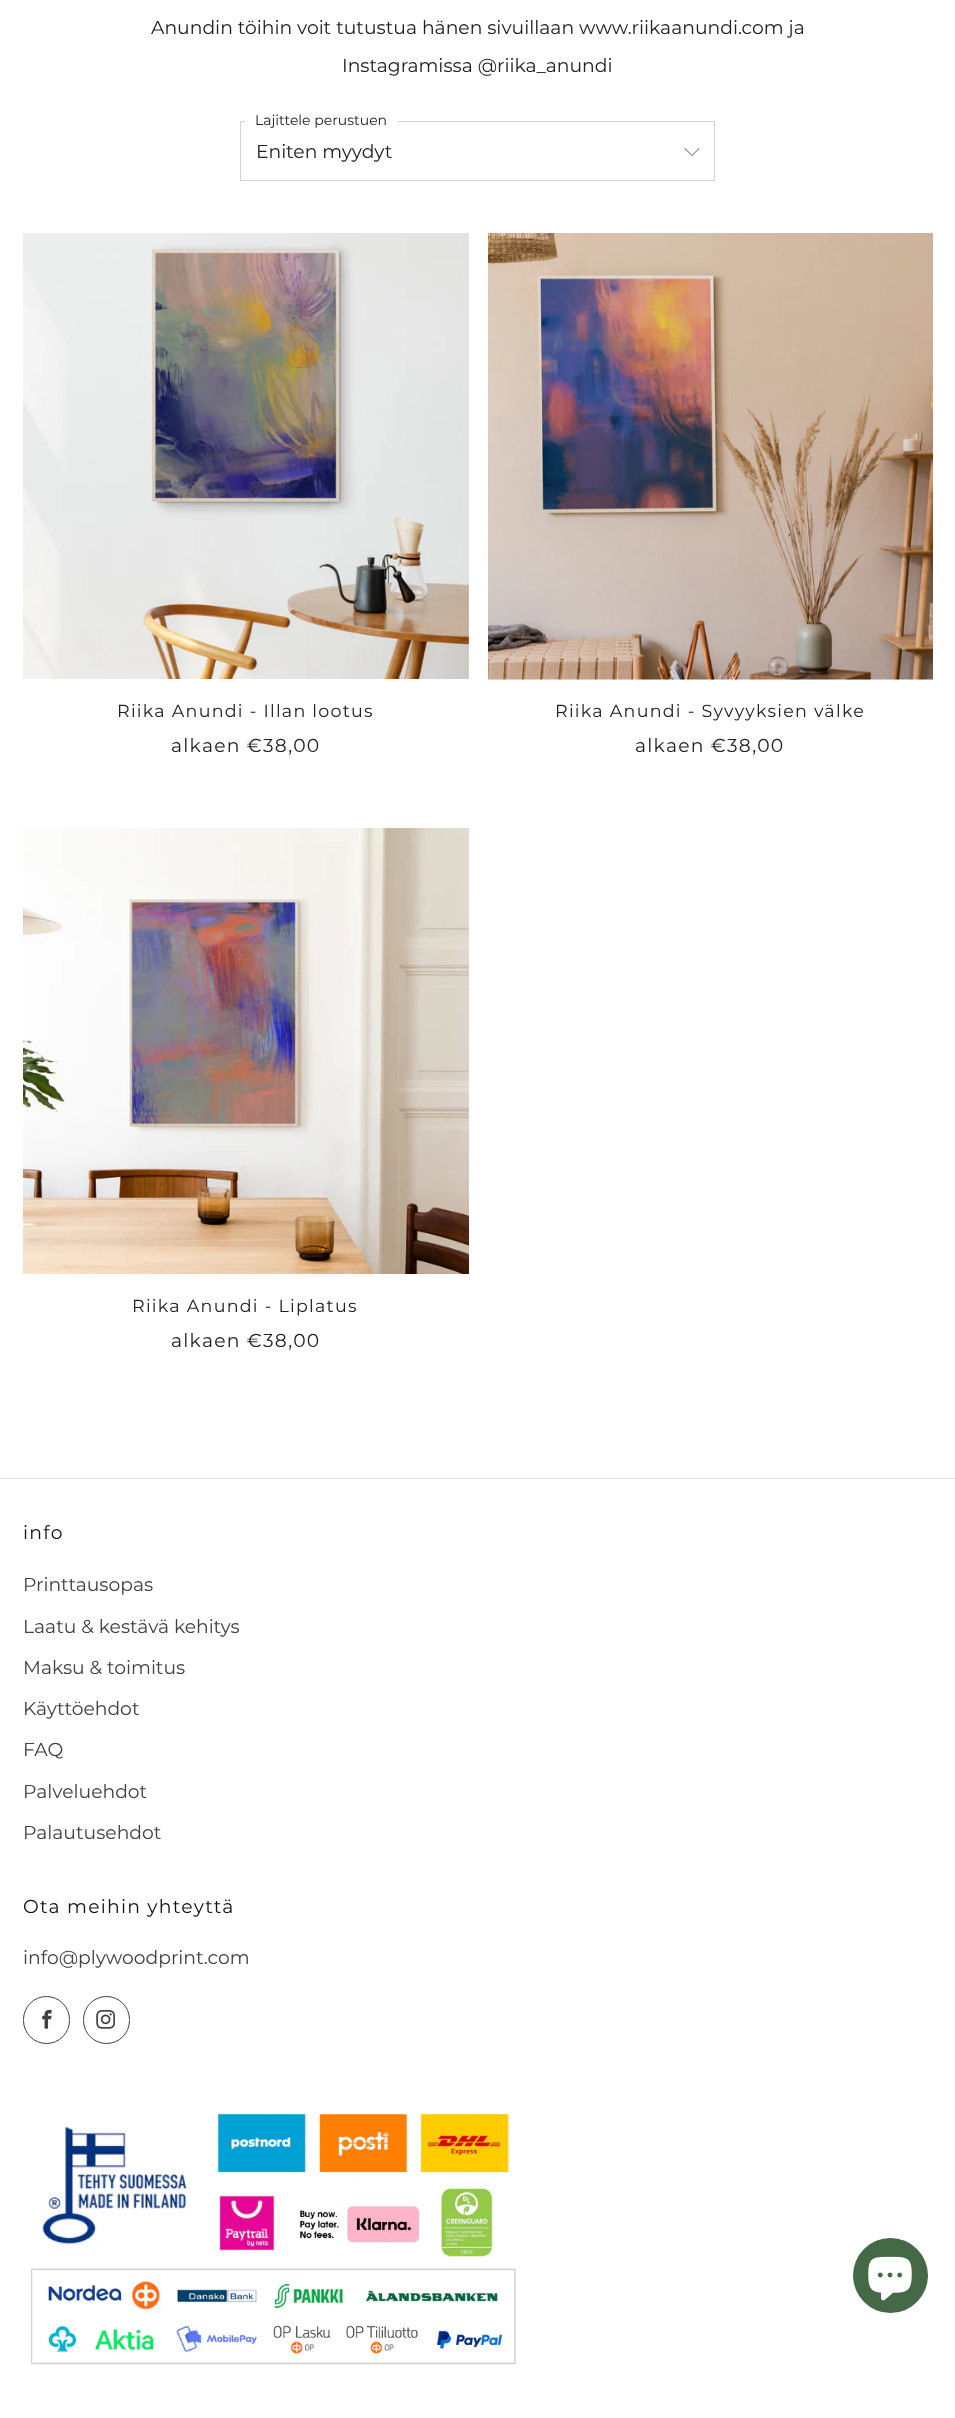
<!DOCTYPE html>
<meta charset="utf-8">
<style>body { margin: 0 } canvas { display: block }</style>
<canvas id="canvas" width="955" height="2418"></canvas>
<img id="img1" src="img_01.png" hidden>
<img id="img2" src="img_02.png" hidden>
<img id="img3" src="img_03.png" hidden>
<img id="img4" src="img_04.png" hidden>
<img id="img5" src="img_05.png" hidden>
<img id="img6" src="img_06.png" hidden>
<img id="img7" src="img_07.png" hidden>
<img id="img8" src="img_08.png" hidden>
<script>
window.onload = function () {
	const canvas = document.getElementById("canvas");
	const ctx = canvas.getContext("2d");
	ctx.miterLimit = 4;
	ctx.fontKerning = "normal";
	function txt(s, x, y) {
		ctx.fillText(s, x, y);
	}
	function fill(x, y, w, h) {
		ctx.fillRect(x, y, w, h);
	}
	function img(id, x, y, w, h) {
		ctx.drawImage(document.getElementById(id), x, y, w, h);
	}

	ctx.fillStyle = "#FFFFFF";
	fill(0, 0, 955, 2418);
	ctx.strokeStyle = "#D3D3D3";
	ctx.strokeRect(240.5, 121.5, 474, 59);
	fill(245, 121, 153, 1);
	img("img1", 684, 147, 16, 10);
	img("img2", 23, 233, 446, 446);
	img("img3", 488, 233, 445, 447);
	img("img4", 23, 828, 446, 446);
	ctx.fillStyle = "#E4E4E4";
	fill(0, 1478, 955, 1);
	ctx.beginPath();
	ctx.roundRect(23.5, 1996.5, 46, 47, 23);
	ctx.strokeStyle = "#414141";
	ctx.stroke();
	img("img5", 42, 2009, 10, 20);
	ctx.beginPath();
	ctx.roundRect(83.5, 1996.5, 46, 47, 23);
	ctx.stroke();
	img("img6", 96, 2010, 19, 19);
	img("img7", 31, 2110, 485, 255);
	ctx.fillStyle = "#456846";
	ctx.beginPath();
	ctx.arc(890.5, 2275.5, 37.5, 0, Math.PI * 2);
	ctx.fill();
	img("img8", 868, 2256, 44, 45);
	ctx.font = "18.75px Montserrat";
	ctx.fillStyle = "#212121";
	txt("Anundin töihin voit tutustua hänen sivuillaan www.riikaanundi.com ja", 151, 34);
	txt("Instagramissa @riika_anundi", 342, 72);
	ctx.font = "14px Montserrat";
	txt("Lajittele perustuen", 255, 125);
	ctx.font = "18.75px Montserrat";
	txt("Eniten myydyt", 256, 158);
	ctx.letterSpacing = "1.25px";
	ctx.font = "17.5px Montserrat";
	txt("Riika Anundi - Illan lootus", 117, 717);
	ctx.font = "18.75px Montserrat";
	txt("alkaen €38,00", 171, 752);
	ctx.font = "17.5px Montserrat";
	txt("Riika Anundi - Syvyyksien välke", 555, 717);
	ctx.font = "18.75px Montserrat";
	txt("alkaen €38,00", 635, 752);
	ctx.font = "17.5px Montserrat";
	txt("Riika Anundi - Liplatus", 132, 1312);
	ctx.font = "18.75px Montserrat";
	txt("alkaen €38,00", 171, 1347);
	ctx.fillStyle = "#111111";
	txt("info", 23, 1539);
	ctx.letterSpacing = "0px";
	ctx.fillStyle = "#414141";
	txt("Printtausopas", 23, 1591);
	txt("Laatu & kestävä kehitys", 23, 1633);
	txt("Maksu & toimitus", 23, 1674);
	txt("Käyttöehdot", 23, 1715);
	txt("FAQ", 23, 1756);
	txt("Palveluehdot", 23, 1798);
	txt("Palautusehdot", 23, 1839);
	ctx.letterSpacing = "1.25px";
	ctx.fillStyle = "#111111";
	txt("Ota meihin yhteyttä", 23, 1913);
	ctx.letterSpacing = "0px";
	ctx.fillStyle = "#414141";
	txt("info@plywoodprint.com", 23, 1964);
};
</script>
